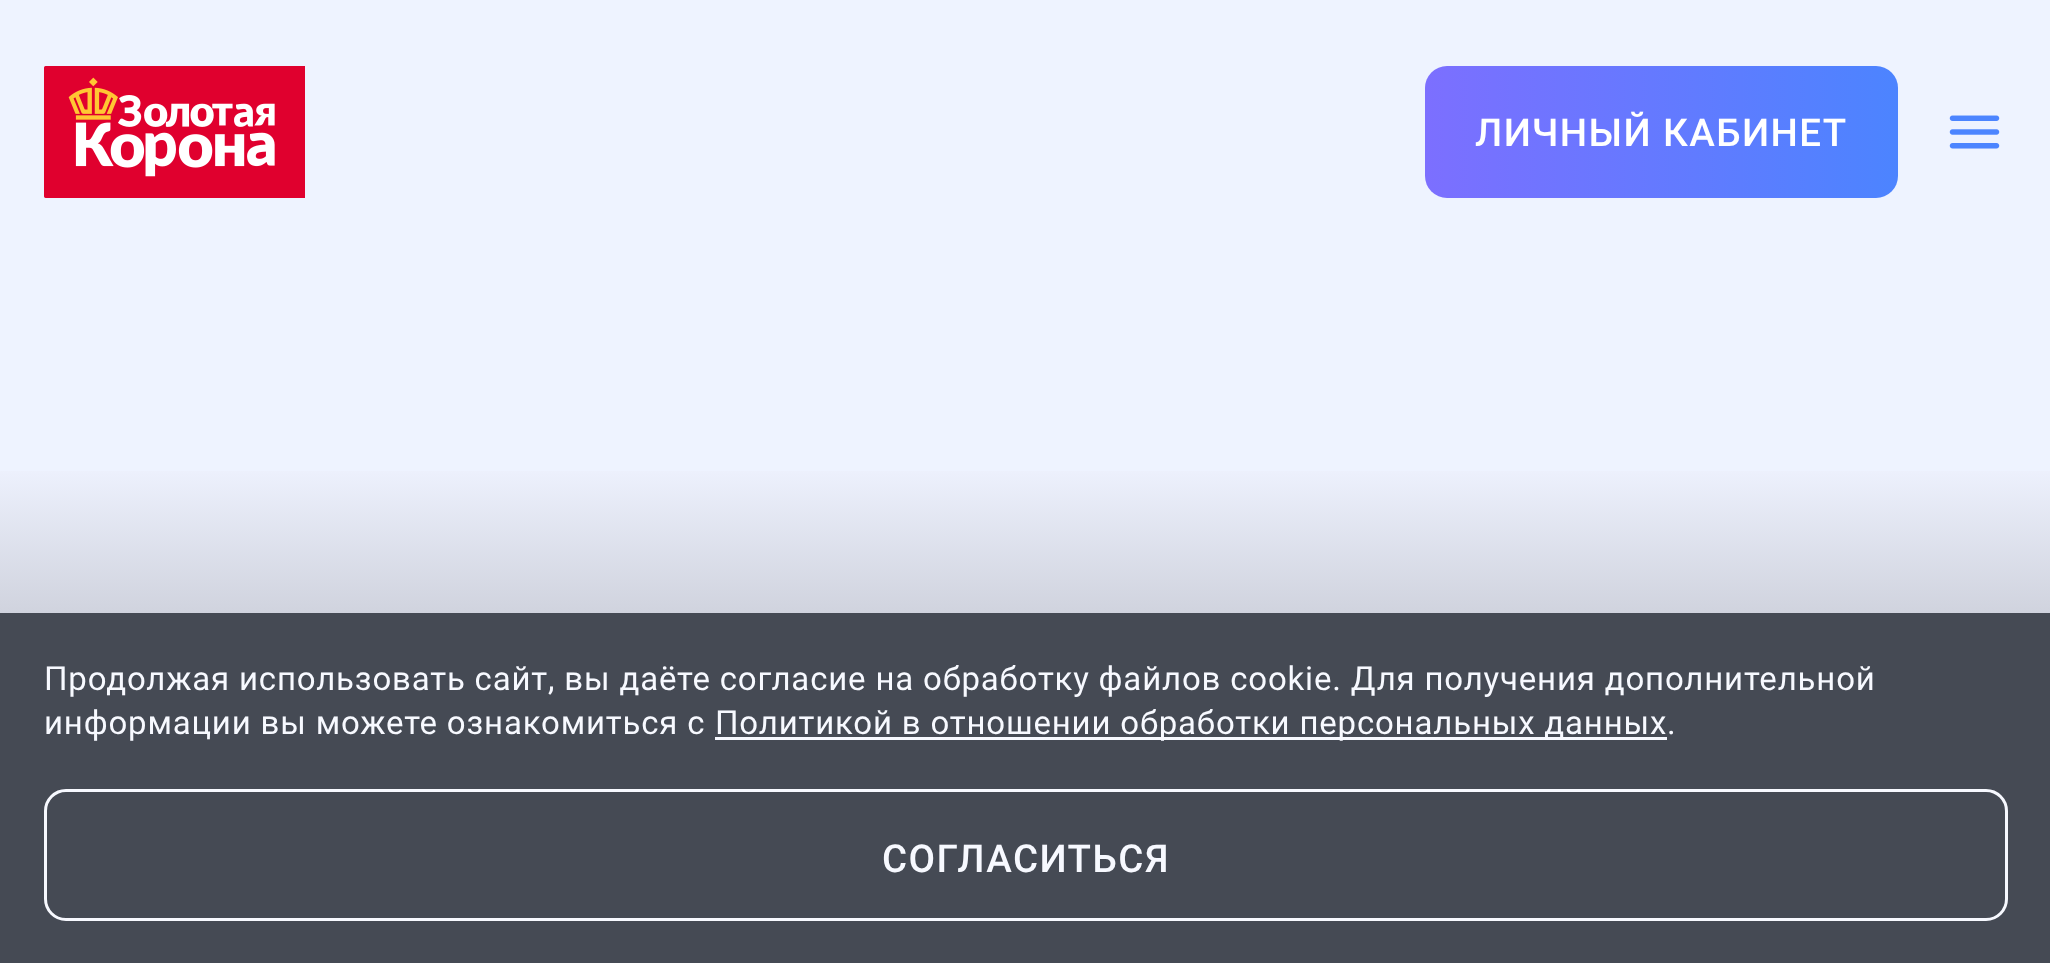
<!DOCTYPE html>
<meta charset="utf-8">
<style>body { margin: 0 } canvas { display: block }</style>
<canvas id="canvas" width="2050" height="963"></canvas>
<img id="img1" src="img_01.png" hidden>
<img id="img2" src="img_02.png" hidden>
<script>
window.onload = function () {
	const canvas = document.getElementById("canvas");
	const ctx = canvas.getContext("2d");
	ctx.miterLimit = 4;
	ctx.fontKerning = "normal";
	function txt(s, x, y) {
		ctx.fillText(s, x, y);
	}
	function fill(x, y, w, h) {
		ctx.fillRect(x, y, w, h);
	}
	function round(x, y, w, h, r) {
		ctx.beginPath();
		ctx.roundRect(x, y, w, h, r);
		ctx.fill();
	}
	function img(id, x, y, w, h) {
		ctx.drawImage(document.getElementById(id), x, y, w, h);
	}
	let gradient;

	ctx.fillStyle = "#EEF3FF";
	fill(0, 0, 2050, 963);
	img("img1", 44, 66, 261, 132);
	gradient = ctx.createLinearGradient(1898, 132, 1425, 132);
	gradient.addColorStop(0, "#4C84FF");
	gradient.addColorStop(1, "#7C6FFF");
	ctx.fillStyle = gradient;
	round(1425, 66, 473, 132, 22);
	img("img2", 1949, 115, 51, 34);
	ctx.fillStyle = "#454A54";
	fill(0, 613, 2050, 350);
	gradient = ctx.createLinearGradient(1026, 459, 1026, 613);
	gradient.addColorStop(0, "#EFF3FF");
	gradient.addColorStop(1, "#D0D3DE");
	ctx.fillStyle = gradient;
	fill(0, 471, 2050, 142);
	ctx.fillStyle = "#F7F9FF";
	fill(715, 737, 952, 3);
	ctx.beginPath();
	ctx.roundRect(45.5, 790.5, 1961, 129, 20.5);
	ctx.strokeStyle = "#F7F9FF";
	ctx.lineWidth = 3;
	ctx.stroke();
	ctx.letterSpacing = "1.4px";
	ctx.font = "500 38.5px Roboto";
	ctx.fillStyle = "#FFFFFF";
	txt("ЛИЧНЫЙ КАБИНЕТ", 1475, 146);
	ctx.letterSpacing = "0.82px";
	ctx.font = "33px Roboto";
	ctx.fillStyle = "#F7F9FF";
	txt("Продолжая использовать сайт, вы даёте согласие на обработку файлов cookie. Для получения дополнительной", 44, 690);
	txt("информации вы можете ознакомиться с", 44, 734);
	txt("Политикой в отношении обработки персональных данных", 715, 734);
	txt(".", 1667, 734);
	ctx.letterSpacing = "1.4px";
	ctx.font = "500 38.5px Roboto";
	txt("СОГЛАСИТЬСЯ", 882, 872);
};
</script>
